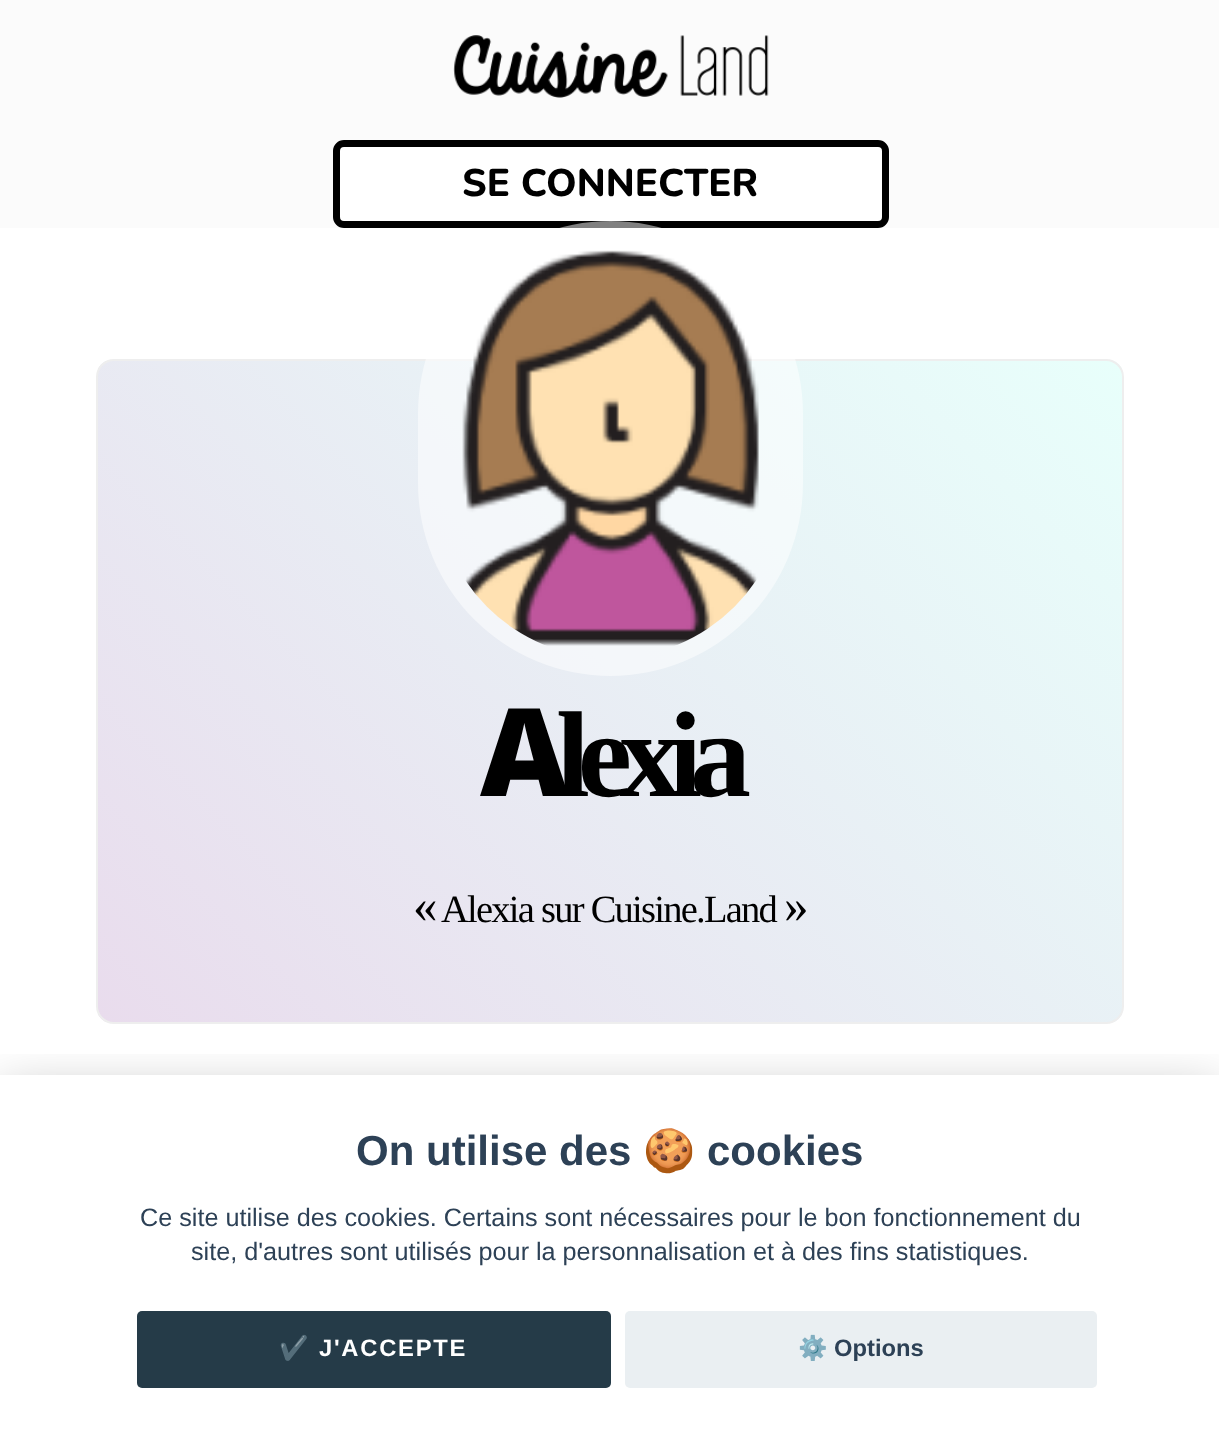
<!DOCTYPE html>
<meta charset="utf-8">
<style>body { margin: 0 } canvas { display: block }</style>
<canvas id="canvas" width="1219" height="1453"></canvas>
<img id="img1" src="img_01.png" hidden>
<img id="img2" src="img_02.png" hidden>
<script>
window.onload = function () {
	const canvas = document.getElementById("canvas");
	const ctx = canvas.getContext("2d");
	ctx.miterLimit = 4;
	ctx.fontKerning = "normal";
	function txt(s, x, y) {
		ctx.fillText(s, x, y);
	}
	function fill(x, y, w, h) {
		ctx.fillRect(x, y, w, h);
	}
	function round(x, y, w, h, r) {
		ctx.beginPath();
		ctx.roundRect(x, y, w, h, r);
		ctx.fill();
	}
	function img(id, x, y, w, h) {
		ctx.drawImage(document.getElementById(id), x, y, w, h);
	}
	let gradient;

	ctx.fillStyle = "#FFFFFF";
	fill(0, 0, 1219, 1453);
	ctx.fillStyle = "#FBFBFB";
	fill(0, 0, 1219, 228);
	img("img1", 453, 35, 316, 63);
	ctx.fillStyle = "#FFFFFF";
	ctx.beginPath();
	ctx.roundRect(336.5, 143.5, 549, 81, 7.5);
	ctx.fill();
	ctx.strokeStyle = "#000000";
	ctx.lineWidth = 7;
	ctx.stroke();
	ctx.save();
	ctx.beginPath();
	ctx.roundRect(96, 359, 1028, 665, 18);
	ctx.clip();
	gradient = ctx.createLinearGradient(189, 1113, 1031, 270);
	gradient.addColorStop(0, "#E9DCED");
	gradient.addColorStop(1, "#E8FFFB");
	gradient.addColorStop(1, "#97C9B9");
	ctx.fillStyle = gradient;
	fill(98, 361, 1024, 661);
	ctx.restore();
	ctx.beginPath();
	ctx.roundRect(97, 360, 1026, 663, 17);
	ctx.strokeStyle = "#EEEEEE";
	ctx.lineWidth = 2;
	ctx.stroke();
	ctx.fillStyle = "rgba(255, 255, 255, 0.5)";
	round(418, 221, 385, 455, 192.5);
	img("img2", 462, 250, 297, 396);
	ctx.save();
	ctx.beginPath();
	ctx.rect(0, 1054, 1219, 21);
	ctx.clip();
	ctx.fillStyle = "rgba(2, 2, 3, 0.28)";
	ctx.filter = "blur(26px)";
	ctx.beginPath();
	ctx.rect(0, 1092, 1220, 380);
	ctx.fill();
	ctx.filter = "none";
	ctx.restore();
	ctx.fillStyle = "#253B48";
	round(137, 1311, 474, 77, 5);
	ctx.fillStyle = "#EAEFF2";
	round(625, 1311, 472, 77, 5);
	ctx.font = "800 38.5px Nunito";
	ctx.fillStyle = "#000000";
	txt("SE CONNECTER", 462, 196);
	ctx.letterSpacing = "-12.25px";
	ctx.font = "900 122px Noto Sans";
	txt("A", 480, 796);
	ctx.font = "bold 122px Liberation Serif";
	txt("lexia", 556, 796);
	ctx.letterSpacing = "-1.75px";
	ctx.font = "49px Liberation Serif";
	txt("«", 413, 922);
	ctx.font = "38.5px Liberation Serif";
	txt("Alexia sur Cuisine.Land", 441, 922);
	ctx.font = "49px Liberation Serif";
	txt("»", 784, 922);
	ctx.letterSpacing = "0px";
	ctx.font = "bold 42px Liberation Sans";
	ctx.fillStyle = "#2D4156";
	txt("On utilise des", 356, 1165);
	ctx.font = "bold 42px Noto Color Emoji";
	txt("🍪", 643, 1165);
	ctx.font = "bold 42px Liberation Sans";
	txt("cookies", 707, 1165);
	ctx.font = "25.2px Liberation Sans";
	txt("Ce site utilise des cookies. Certains sont nécessaires pour le bon fonctionnement du", 140, 1226);
	txt("site, d'autres sont utilisés pour la personnalisation et à des fins statistiques.", 191, 1260);
	ctx.letterSpacing = "1.75px";
	ctx.font = "bold 23.75px Noto Color Emoji";
	ctx.fillStyle = "#FFFFFF";
	txt("✔️", 279, 1356);
	ctx.font = "bold 23.75px Liberation Sans";
	txt("J'ACCEPTE", 319, 1356);
	ctx.letterSpacing = "0px";
	ctx.font = "bold 23.75px Noto Color Emoji";
	ctx.fillStyle = "#2D4156";
	txt("⚙️", 798, 1356);
	ctx.font = "bold 23.75px Liberation Sans";
	txt("Options", 834, 1356);
};
</script>
